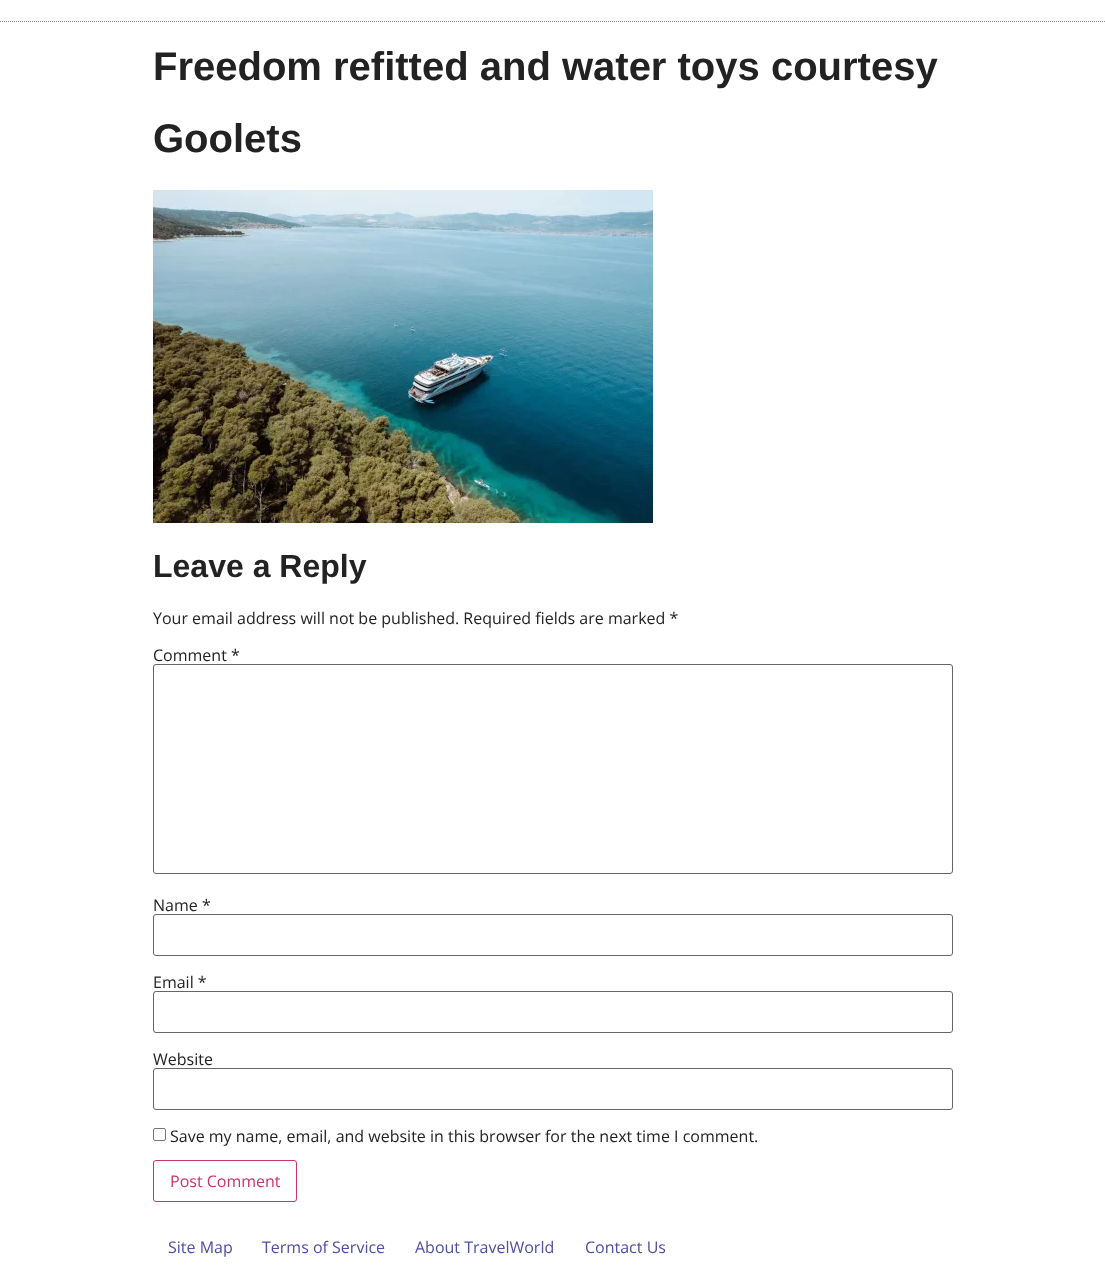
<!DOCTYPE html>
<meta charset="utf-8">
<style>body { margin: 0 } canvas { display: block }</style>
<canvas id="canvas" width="1105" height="1279"></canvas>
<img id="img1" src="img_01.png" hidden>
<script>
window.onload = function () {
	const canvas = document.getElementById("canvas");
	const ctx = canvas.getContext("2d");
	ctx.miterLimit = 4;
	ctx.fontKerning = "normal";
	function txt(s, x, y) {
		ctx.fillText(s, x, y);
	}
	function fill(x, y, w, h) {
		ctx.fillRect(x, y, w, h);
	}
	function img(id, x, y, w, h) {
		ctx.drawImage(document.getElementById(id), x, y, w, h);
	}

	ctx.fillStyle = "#FFFFFF";
	fill(0, 0, 1105, 1279);
	ctx.beginPath();
	ctx.moveTo(0, 21.5);
	ctx.lineTo(1105, 21.5);
	ctx.strokeStyle = "#8E8E8E";
	ctx.setLineDash([1, 1]);
	ctx.stroke();
	img("img1", 153, 190, 500, 333);
	ctx.beginPath();
	ctx.roundRect(153.5, 664.5, 799, 209, 2.5);
	ctx.strokeStyle = "#666666";
	ctx.setLineDash([]);
	ctx.stroke();
	ctx.beginPath();
	ctx.roundRect(153.5, 914.5, 799, 41, 2.5);
	ctx.stroke();
	ctx.beginPath();
	ctx.roundRect(153.5, 991.5, 799, 41, 2.5);
	ctx.stroke();
	ctx.beginPath();
	ctx.roundRect(153.5, 1068.5, 799, 41, 2.5);
	ctx.stroke();
	ctx.beginPath();
	ctx.roundRect(153.5, 1128.5, 12, 12, 1.5);
	ctx.strokeStyle = "#767676";
	ctx.stroke();
	ctx.beginPath();
	ctx.roundRect(153.5, 1160.5, 143, 41, 2.5);
	ctx.strokeStyle = "#CC3366";
	ctx.stroke();
	ctx.font = "bold 40px Liberation Sans";
	ctx.fillStyle = "#222222";
	txt("Freedom refitted and water toys courtesy", 153, 80);
	txt("Goolets", 153, 152);
	ctx.font = "bold 32px Liberation Sans";
	txt("Leave a Reply", 153, 577);
	ctx.font = "16px Open Sans";
	txt("Your email address will not be published. Required fields are marked *", 153, 624);
	txt("Comment *", 153, 661);
	txt("Name *", 153, 911);
	txt("Email *", 153, 988);
	txt("Website", 153, 1065);
	txt("Save my name, email, and website in this browser for the next time I comment.", 170, 1142);
	ctx.fillStyle = "#CC3366";
	txt("Post Comment", 170, 1187);
	ctx.fillStyle = "#4E4EA2";
	txt("Site Map", 168, 1253);
	txt("Terms of Service", 262, 1253);
	txt("About TravelWorld", 415, 1253);
	txt("Contact Us", 585, 1253);
};
</script>
